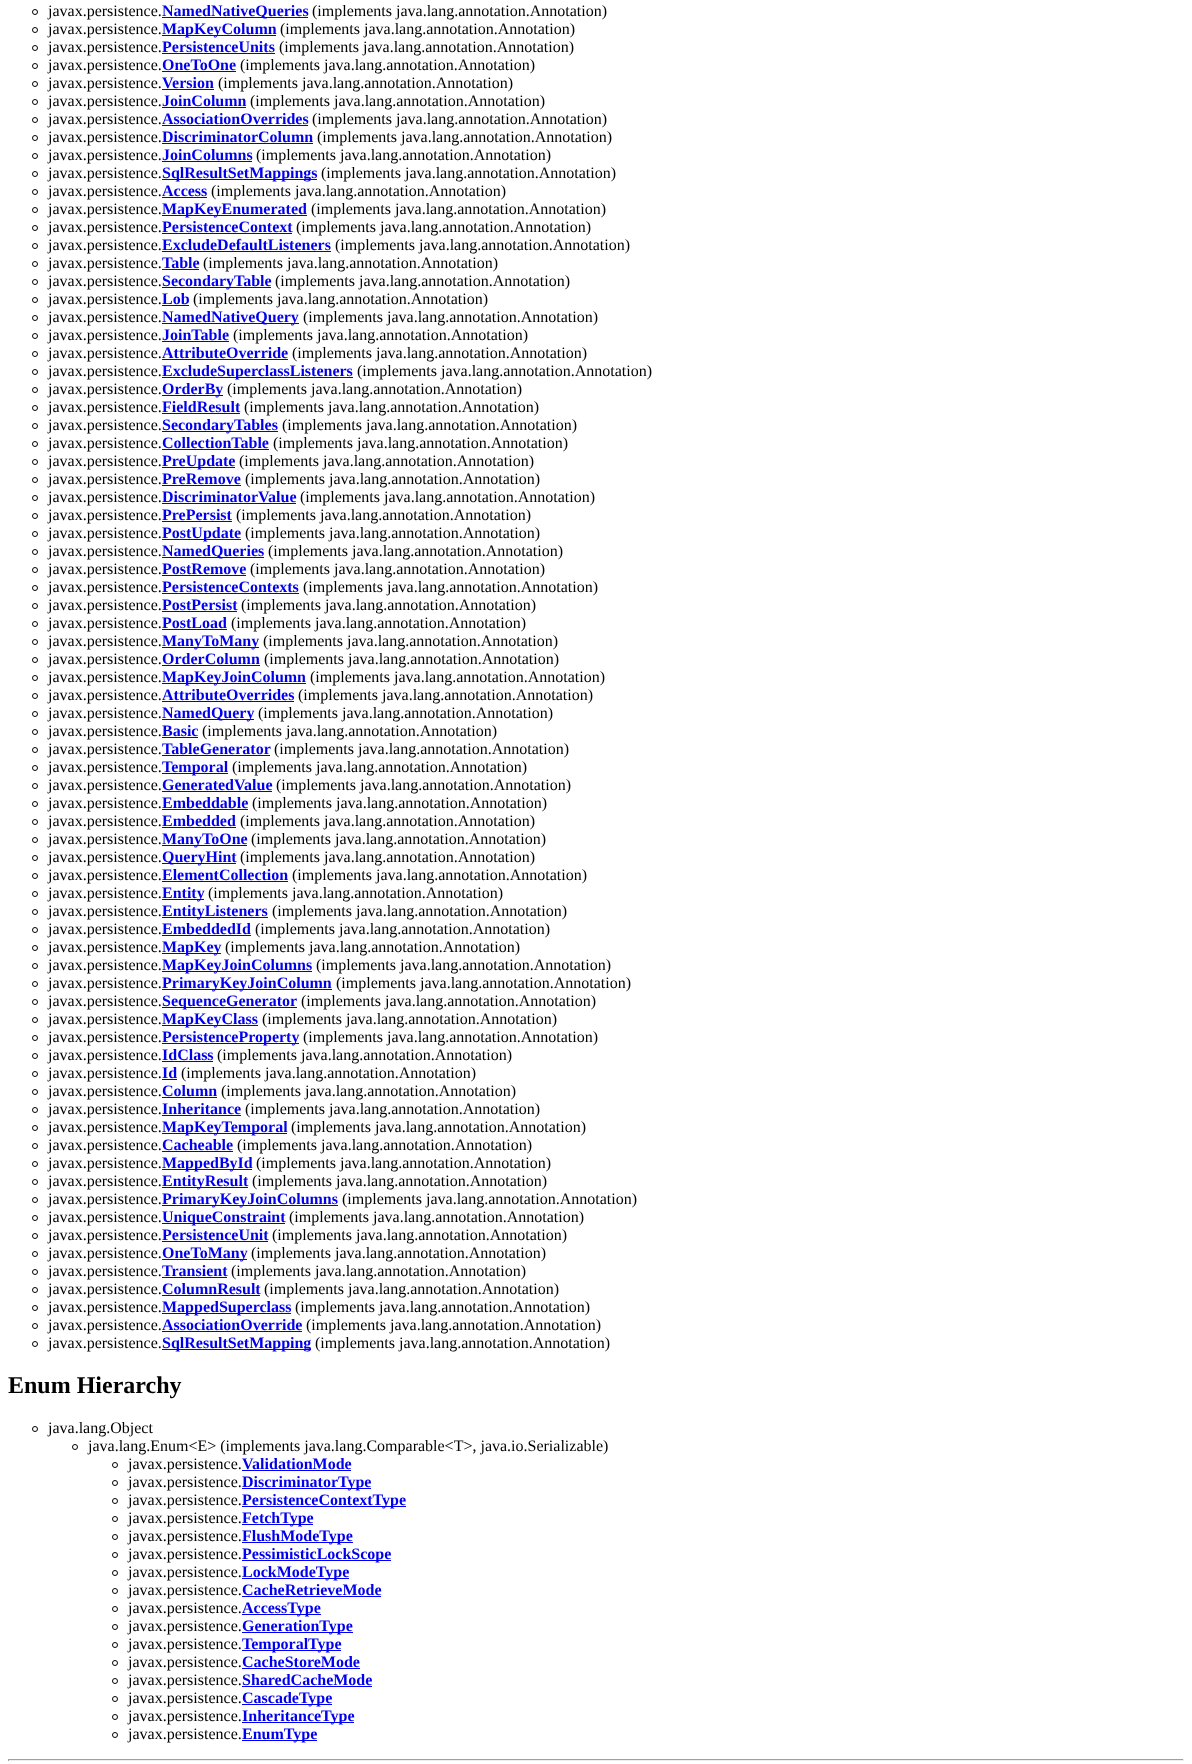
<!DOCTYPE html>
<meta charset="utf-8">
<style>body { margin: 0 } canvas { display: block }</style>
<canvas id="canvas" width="1192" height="1764"></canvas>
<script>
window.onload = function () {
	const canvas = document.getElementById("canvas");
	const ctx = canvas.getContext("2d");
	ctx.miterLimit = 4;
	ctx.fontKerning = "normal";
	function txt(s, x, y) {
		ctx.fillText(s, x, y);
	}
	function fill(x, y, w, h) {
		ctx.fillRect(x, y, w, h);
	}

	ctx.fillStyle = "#FFFFFF";
	fill(0, 0, 1192, 1764);
	ctx.beginPath();
	ctx.arc(35, 12, 2.5, 0, Math.PI * 2);
	ctx.strokeStyle = "#000000";
	ctx.stroke();
	ctx.fillStyle = "#0000EE";
	fill(162, 17, 146, 1);
	ctx.beginPath();
	ctx.arc(35, 30, 2.5, 0, Math.PI * 2);
	ctx.stroke();
	fill(162, 35, 114, 1);
	ctx.beginPath();
	ctx.arc(35, 48, 2.5, 0, Math.PI * 2);
	ctx.stroke();
	fill(162, 53, 113, 1);
	ctx.beginPath();
	ctx.arc(35, 66, 2.5, 0, Math.PI * 2);
	ctx.stroke();
	fill(162, 71, 74, 1);
	ctx.beginPath();
	ctx.arc(35, 84, 2.5, 0, Math.PI * 2);
	ctx.stroke();
	fill(162, 89, 52, 1);
	ctx.beginPath();
	ctx.arc(35, 102, 2.5, 0, Math.PI * 2);
	ctx.stroke();
	fill(162, 107, 84, 1);
	ctx.beginPath();
	ctx.arc(35, 120, 2.5, 0, Math.PI * 2);
	ctx.stroke();
	fill(162, 125, 146, 1);
	ctx.beginPath();
	ctx.arc(35, 138, 2.5, 0, Math.PI * 2);
	ctx.stroke();
	fill(162, 143, 151, 1);
	ctx.beginPath();
	ctx.arc(35, 156, 2.5, 0, Math.PI * 2);
	ctx.stroke();
	fill(162, 161, 90, 1);
	ctx.beginPath();
	ctx.arc(35, 174, 2.5, 0, Math.PI * 2);
	ctx.stroke();
	fill(162, 179, 155, 1);
	ctx.beginPath();
	ctx.arc(35, 192, 2.5, 0, Math.PI * 2);
	ctx.stroke();
	fill(162, 197, 45, 1);
	ctx.beginPath();
	ctx.arc(35, 210, 2.5, 0, Math.PI * 2);
	ctx.stroke();
	fill(162, 215, 145, 1);
	ctx.beginPath();
	ctx.arc(35, 228, 2.5, 0, Math.PI * 2);
	ctx.stroke();
	fill(162, 233, 130, 1);
	ctx.beginPath();
	ctx.arc(35, 246, 2.5, 0, Math.PI * 2);
	ctx.stroke();
	fill(162, 251, 169, 1);
	ctx.beginPath();
	ctx.arc(35, 264, 2.5, 0, Math.PI * 2);
	ctx.stroke();
	fill(162, 269, 37, 1);
	ctx.beginPath();
	ctx.arc(35, 282, 2.5, 0, Math.PI * 2);
	ctx.stroke();
	fill(162, 287, 109, 1);
	ctx.beginPath();
	ctx.arc(35, 300, 2.5, 0, Math.PI * 2);
	ctx.stroke();
	fill(162, 305, 27, 1);
	ctx.beginPath();
	ctx.arc(35, 318, 2.5, 0, Math.PI * 2);
	ctx.stroke();
	fill(162, 323, 137, 1);
	ctx.beginPath();
	ctx.arc(35, 336, 2.5, 0, Math.PI * 2);
	ctx.stroke();
	fill(162, 341, 67, 1);
	ctx.beginPath();
	ctx.arc(35, 354, 2.5, 0, Math.PI * 2);
	ctx.stroke();
	fill(162, 359, 126, 1);
	ctx.beginPath();
	ctx.arc(35, 372, 2.5, 0, Math.PI * 2);
	ctx.stroke();
	fill(162, 377, 191, 1);
	ctx.beginPath();
	ctx.arc(35, 390, 2.5, 0, Math.PI * 2);
	ctx.stroke();
	fill(162, 395, 61, 1);
	ctx.beginPath();
	ctx.arc(35, 408, 2.5, 0, Math.PI * 2);
	ctx.stroke();
	fill(162, 413, 78, 1);
	ctx.beginPath();
	ctx.arc(35, 426, 2.5, 0, Math.PI * 2);
	ctx.stroke();
	fill(162, 431, 116, 1);
	ctx.beginPath();
	ctx.arc(35, 444, 2.5, 0, Math.PI * 2);
	ctx.stroke();
	fill(162, 449, 107, 1);
	ctx.beginPath();
	ctx.arc(35, 462, 2.5, 0, Math.PI * 2);
	ctx.stroke();
	fill(162, 467, 73, 1);
	ctx.beginPath();
	ctx.arc(35, 480, 2.5, 0, Math.PI * 2);
	ctx.stroke();
	fill(162, 485, 79, 1);
	ctx.beginPath();
	ctx.arc(35, 498, 2.5, 0, Math.PI * 2);
	ctx.stroke();
	fill(162, 503, 134, 1);
	ctx.beginPath();
	ctx.arc(35, 516, 2.5, 0, Math.PI * 2);
	ctx.stroke();
	fill(162, 521, 70, 1);
	ctx.beginPath();
	ctx.arc(35, 534, 2.5, 0, Math.PI * 2);
	ctx.stroke();
	fill(162, 539, 79, 1);
	ctx.beginPath();
	ctx.arc(35, 552, 2.5, 0, Math.PI * 2);
	ctx.stroke();
	fill(162, 557, 102, 1);
	ctx.beginPath();
	ctx.arc(35, 570, 2.5, 0, Math.PI * 2);
	ctx.stroke();
	fill(162, 575, 84, 1);
	ctx.beginPath();
	ctx.arc(35, 588, 2.5, 0, Math.PI * 2);
	ctx.stroke();
	fill(162, 593, 137, 1);
	ctx.beginPath();
	ctx.arc(35, 606, 2.5, 0, Math.PI * 2);
	ctx.stroke();
	fill(162, 611, 75, 1);
	ctx.beginPath();
	ctx.arc(35, 624, 2.5, 0, Math.PI * 2);
	ctx.stroke();
	fill(162, 629, 65, 1);
	ctx.beginPath();
	ctx.arc(35, 642, 2.5, 0, Math.PI * 2);
	ctx.stroke();
	fill(162, 647, 97, 1);
	ctx.beginPath();
	ctx.arc(35, 660, 2.5, 0, Math.PI * 2);
	ctx.stroke();
	fill(162, 665, 98, 1);
	ctx.beginPath();
	ctx.arc(35, 678, 2.5, 0, Math.PI * 2);
	ctx.stroke();
	fill(162, 683, 144, 1);
	ctx.beginPath();
	ctx.arc(35, 696, 2.5, 0, Math.PI * 2);
	ctx.stroke();
	fill(162, 701, 132, 1);
	ctx.beginPath();
	ctx.arc(35, 714, 2.5, 0, Math.PI * 2);
	ctx.stroke();
	fill(162, 719, 92, 1);
	ctx.beginPath();
	ctx.arc(35, 732, 2.5, 0, Math.PI * 2);
	ctx.stroke();
	fill(162, 737, 36, 1);
	ctx.beginPath();
	ctx.arc(35, 750, 2.5, 0, Math.PI * 2);
	ctx.stroke();
	fill(162, 755, 108, 1);
	ctx.beginPath();
	ctx.arc(35, 768, 2.5, 0, Math.PI * 2);
	ctx.stroke();
	fill(162, 773, 66, 1);
	ctx.beginPath();
	ctx.arc(35, 786, 2.5, 0, Math.PI * 2);
	ctx.stroke();
	fill(162, 791, 110, 1);
	ctx.beginPath();
	ctx.arc(35, 804, 2.5, 0, Math.PI * 2);
	ctx.stroke();
	fill(162, 809, 86, 1);
	ctx.beginPath();
	ctx.arc(35, 822, 2.5, 0, Math.PI * 2);
	ctx.stroke();
	fill(162, 827, 74, 1);
	ctx.beginPath();
	ctx.arc(35, 840, 2.5, 0, Math.PI * 2);
	ctx.stroke();
	fill(162, 845, 85, 1);
	ctx.beginPath();
	ctx.arc(35, 858, 2.5, 0, Math.PI * 2);
	ctx.stroke();
	fill(162, 863, 74, 1);
	ctx.beginPath();
	ctx.arc(35, 876, 2.5, 0, Math.PI * 2);
	ctx.stroke();
	fill(162, 881, 126, 1);
	ctx.beginPath();
	ctx.arc(35, 894, 2.5, 0, Math.PI * 2);
	ctx.stroke();
	fill(162, 899, 42, 1);
	ctx.beginPath();
	ctx.arc(35, 912, 2.5, 0, Math.PI * 2);
	ctx.stroke();
	fill(162, 917, 106, 1);
	ctx.beginPath();
	ctx.arc(35, 930, 2.5, 0, Math.PI * 2);
	ctx.stroke();
	fill(162, 935, 89, 1);
	ctx.beginPath();
	ctx.arc(35, 948, 2.5, 0, Math.PI * 2);
	ctx.stroke();
	fill(162, 953, 59, 1);
	ctx.beginPath();
	ctx.arc(35, 966, 2.5, 0, Math.PI * 2);
	ctx.stroke();
	fill(162, 971, 150, 1);
	ctx.beginPath();
	ctx.arc(35, 984, 2.5, 0, Math.PI * 2);
	ctx.stroke();
	fill(162, 989, 170, 1);
	ctx.beginPath();
	ctx.arc(35, 1002, 2.5, 0, Math.PI * 2);
	ctx.stroke();
	fill(162, 1007, 135, 1);
	ctx.beginPath();
	ctx.arc(35, 1020, 2.5, 0, Math.PI * 2);
	ctx.stroke();
	fill(162, 1025, 96, 1);
	ctx.beginPath();
	ctx.arc(35, 1038, 2.5, 0, Math.PI * 2);
	ctx.stroke();
	fill(162, 1043, 137, 1);
	ctx.beginPath();
	ctx.arc(35, 1056, 2.5, 0, Math.PI * 2);
	ctx.stroke();
	fill(162, 1061, 51, 1);
	ctx.beginPath();
	ctx.arc(35, 1074, 2.5, 0, Math.PI * 2);
	ctx.stroke();
	fill(162, 1079, 15, 1);
	ctx.beginPath();
	ctx.arc(35, 1092, 2.5, 0, Math.PI * 2);
	ctx.stroke();
	fill(162, 1097, 55, 1);
	ctx.beginPath();
	ctx.arc(35, 1110, 2.5, 0, Math.PI * 2);
	ctx.stroke();
	fill(162, 1115, 79, 1);
	ctx.beginPath();
	ctx.arc(35, 1128, 2.5, 0, Math.PI * 2);
	ctx.stroke();
	fill(162, 1133, 125, 1);
	ctx.beginPath();
	ctx.arc(35, 1146, 2.5, 0, Math.PI * 2);
	ctx.stroke();
	fill(162, 1151, 71, 1);
	ctx.beginPath();
	ctx.arc(35, 1164, 2.5, 0, Math.PI * 2);
	ctx.stroke();
	fill(162, 1169, 90, 1);
	ctx.beginPath();
	ctx.arc(35, 1182, 2.5, 0, Math.PI * 2);
	ctx.stroke();
	fill(162, 1187, 86, 1);
	ctx.beginPath();
	ctx.arc(35, 1200, 2.5, 0, Math.PI * 2);
	ctx.stroke();
	fill(162, 1205, 176, 1);
	ctx.beginPath();
	ctx.arc(35, 1218, 2.5, 0, Math.PI * 2);
	ctx.stroke();
	fill(162, 1223, 123, 1);
	ctx.beginPath();
	ctx.arc(35, 1236, 2.5, 0, Math.PI * 2);
	ctx.stroke();
	fill(162, 1241, 106, 1);
	ctx.beginPath();
	ctx.arc(35, 1254, 2.5, 0, Math.PI * 2);
	ctx.stroke();
	fill(162, 1259, 85, 1);
	ctx.beginPath();
	ctx.arc(35, 1272, 2.5, 0, Math.PI * 2);
	ctx.stroke();
	fill(162, 1277, 65, 1);
	ctx.beginPath();
	ctx.arc(35, 1290, 2.5, 0, Math.PI * 2);
	ctx.stroke();
	fill(162, 1295, 98, 1);
	ctx.beginPath();
	ctx.arc(35, 1308, 2.5, 0, Math.PI * 2);
	ctx.stroke();
	fill(162, 1313, 129, 1);
	ctx.beginPath();
	ctx.arc(35, 1326, 2.5, 0, Math.PI * 2);
	ctx.stroke();
	fill(162, 1331, 140, 1);
	ctx.beginPath();
	ctx.arc(35, 1344, 2.5, 0, Math.PI * 2);
	ctx.stroke();
	fill(162, 1349, 149, 1);
	ctx.beginPath();
	ctx.arc(35, 1429, 2.5, 0, Math.PI * 2);
	ctx.stroke();
	ctx.beginPath();
	ctx.arc(75, 1447, 2.5, 0, Math.PI * 2);
	ctx.stroke();
	ctx.beginPath();
	ctx.arc(115, 1465, 2.5, 0, Math.PI * 2);
	ctx.stroke();
	fill(242, 1470, 109, 1);
	ctx.beginPath();
	ctx.arc(115, 1483, 2.5, 0, Math.PI * 2);
	ctx.stroke();
	fill(242, 1488, 129, 1);
	ctx.beginPath();
	ctx.arc(115, 1501, 2.5, 0, Math.PI * 2);
	ctx.stroke();
	fill(242, 1506, 164, 1);
	ctx.beginPath();
	ctx.arc(115, 1519, 2.5, 0, Math.PI * 2);
	ctx.stroke();
	fill(242, 1524, 71, 1);
	ctx.beginPath();
	ctx.arc(115, 1537, 2.5, 0, Math.PI * 2);
	ctx.stroke();
	fill(242, 1542, 111, 1);
	ctx.beginPath();
	ctx.arc(115, 1555, 2.5, 0, Math.PI * 2);
	ctx.stroke();
	fill(242, 1560, 149, 1);
	ctx.beginPath();
	ctx.arc(115, 1573, 2.5, 0, Math.PI * 2);
	ctx.stroke();
	fill(242, 1578, 107, 1);
	ctx.beginPath();
	ctx.arc(115, 1591, 2.5, 0, Math.PI * 2);
	ctx.stroke();
	fill(242, 1596, 139, 1);
	ctx.beginPath();
	ctx.arc(115, 1609, 2.5, 0, Math.PI * 2);
	ctx.stroke();
	fill(242, 1614, 79, 1);
	ctx.beginPath();
	ctx.arc(115, 1627, 2.5, 0, Math.PI * 2);
	ctx.stroke();
	fill(242, 1632, 111, 1);
	ctx.beginPath();
	ctx.arc(115, 1645, 2.5, 0, Math.PI * 2);
	ctx.stroke();
	fill(242, 1650, 99, 1);
	ctx.beginPath();
	ctx.arc(115, 1663, 2.5, 0, Math.PI * 2);
	ctx.stroke();
	fill(242, 1668, 118, 1);
	ctx.beginPath();
	ctx.arc(115, 1681, 2.5, 0, Math.PI * 2);
	ctx.stroke();
	fill(242, 1686, 130, 1);
	ctx.beginPath();
	ctx.arc(115, 1699, 2.5, 0, Math.PI * 2);
	ctx.stroke();
	fill(242, 1704, 90, 1);
	ctx.beginPath();
	ctx.arc(115, 1717, 2.5, 0, Math.PI * 2);
	ctx.stroke();
	fill(242, 1722, 112, 1);
	ctx.beginPath();
	ctx.arc(115, 1735, 2.5, 0, Math.PI * 2);
	ctx.stroke();
	fill(242, 1740, 75, 1);
	ctx.fillStyle = "#9F9F9F";
	fill(8, 1759, 1176, 1);
	ctx.fillStyle = "#EEEEEE";
	fill(1183, 1759, 1, 2);
	fill(8, 1760, 1176, 1);
	ctx.fillStyle = "#9F9F9F";
	fill(8, 1759, 1, 2);
	ctx.font = "16px Liberation Serif";
	ctx.fillStyle = "#000000";
	txt("javax.persistence.", 48, 16);
	ctx.font = "bold 16px Liberation Serif";
	ctx.fillStyle = "#0000EE";
	txt("NamedNativeQueries", 162, 16);
	ctx.font = "16px Liberation Serif";
	ctx.fillStyle = "#000000";
	txt("(implements java.lang.annotation.Annotation)", 312, 16);
	txt("javax.persistence.", 48, 34);
	ctx.font = "bold 16px Liberation Serif";
	ctx.fillStyle = "#0000EE";
	txt("MapKeyColumn", 162, 34);
	ctx.font = "16px Liberation Serif";
	ctx.fillStyle = "#000000";
	txt("(implements java.lang.annotation.Annotation)", 280, 34);
	txt("javax.persistence.", 48, 52);
	ctx.font = "bold 16px Liberation Serif";
	ctx.fillStyle = "#0000EE";
	txt("PersistenceUnits", 162, 52);
	ctx.font = "16px Liberation Serif";
	ctx.fillStyle = "#000000";
	txt("(implements java.lang.annotation.Annotation)", 279, 52);
	txt("javax.persistence.", 48, 70);
	ctx.font = "bold 16px Liberation Serif";
	ctx.fillStyle = "#0000EE";
	txt("OneToOne", 162, 70);
	ctx.font = "16px Liberation Serif";
	ctx.fillStyle = "#000000";
	txt("(implements java.lang.annotation.Annotation)", 240, 70);
	txt("javax.persistence.", 48, 88);
	ctx.font = "bold 16px Liberation Serif";
	ctx.fillStyle = "#0000EE";
	txt("Version", 162, 88);
	ctx.font = "16px Liberation Serif";
	ctx.fillStyle = "#000000";
	txt("(implements java.lang.annotation.Annotation)", 218, 88);
	txt("javax.persistence.", 48, 106);
	ctx.font = "bold 16px Liberation Serif";
	ctx.fillStyle = "#0000EE";
	txt("JoinColumn", 162, 106);
	ctx.font = "16px Liberation Serif";
	ctx.fillStyle = "#000000";
	txt("(implements java.lang.annotation.Annotation)", 250, 106);
	txt("javax.persistence.", 48, 124);
	ctx.font = "bold 16px Liberation Serif";
	ctx.fillStyle = "#0000EE";
	txt("AssociationOverrides", 162, 124);
	ctx.font = "16px Liberation Serif";
	ctx.fillStyle = "#000000";
	txt("(implements java.lang.annotation.Annotation)", 312, 124);
	txt("javax.persistence.", 48, 142);
	ctx.font = "bold 16px Liberation Serif";
	ctx.fillStyle = "#0000EE";
	txt("DiscriminatorColumn", 162, 142);
	ctx.font = "16px Liberation Serif";
	ctx.fillStyle = "#000000";
	txt("(implements java.lang.annotation.Annotation)", 317, 142);
	txt("javax.persistence.", 48, 160);
	ctx.font = "bold 16px Liberation Serif";
	ctx.fillStyle = "#0000EE";
	txt("JoinColumns", 162, 160);
	ctx.font = "16px Liberation Serif";
	ctx.fillStyle = "#000000";
	txt("(implements java.lang.annotation.Annotation)", 256, 160);
	txt("javax.persistence.", 48, 178);
	ctx.font = "bold 16px Liberation Serif";
	ctx.fillStyle = "#0000EE";
	txt("SqlResultSetMappings", 162, 178);
	ctx.font = "16px Liberation Serif";
	ctx.fillStyle = "#000000";
	txt("(implements java.lang.annotation.Annotation)", 321, 178);
	txt("javax.persistence.", 48, 196);
	ctx.font = "bold 16px Liberation Serif";
	ctx.fillStyle = "#0000EE";
	txt("Access", 162, 196);
	ctx.font = "16px Liberation Serif";
	ctx.fillStyle = "#000000";
	txt("(implements java.lang.annotation.Annotation)", 211, 196);
	txt("javax.persistence.", 48, 214);
	ctx.font = "bold 16px Liberation Serif";
	ctx.fillStyle = "#0000EE";
	txt("MapKeyEnumerated", 162, 214);
	ctx.font = "16px Liberation Serif";
	ctx.fillStyle = "#000000";
	txt("(implements java.lang.annotation.Annotation)", 311, 214);
	txt("javax.persistence.", 48, 232);
	ctx.font = "bold 16px Liberation Serif";
	ctx.fillStyle = "#0000EE";
	txt("PersistenceContext", 162, 232);
	ctx.font = "16px Liberation Serif";
	ctx.fillStyle = "#000000";
	txt("(implements java.lang.annotation.Annotation)", 296, 232);
	txt("javax.persistence.", 48, 250);
	ctx.font = "bold 16px Liberation Serif";
	ctx.fillStyle = "#0000EE";
	txt("ExcludeDefaultListeners", 162, 250);
	ctx.font = "16px Liberation Serif";
	ctx.fillStyle = "#000000";
	txt("(implements java.lang.annotation.Annotation)", 335, 250);
	txt("javax.persistence.", 48, 268);
	ctx.font = "bold 16px Liberation Serif";
	ctx.fillStyle = "#0000EE";
	txt("Table", 162, 268);
	ctx.font = "16px Liberation Serif";
	ctx.fillStyle = "#000000";
	txt("(implements java.lang.annotation.Annotation)", 203, 268);
	txt("javax.persistence.", 48, 286);
	ctx.font = "bold 16px Liberation Serif";
	ctx.fillStyle = "#0000EE";
	txt("SecondaryTable", 162, 286);
	ctx.font = "16px Liberation Serif";
	ctx.fillStyle = "#000000";
	txt("(implements java.lang.annotation.Annotation)", 275, 286);
	txt("javax.persistence.", 48, 304);
	ctx.font = "bold 16px Liberation Serif";
	ctx.fillStyle = "#0000EE";
	txt("Lob", 162, 304);
	ctx.font = "16px Liberation Serif";
	ctx.fillStyle = "#000000";
	txt("(implements java.lang.annotation.Annotation)", 193, 304);
	txt("javax.persistence.", 48, 322);
	ctx.font = "bold 16px Liberation Serif";
	ctx.fillStyle = "#0000EE";
	txt("NamedNativeQuery", 162, 322);
	ctx.font = "16px Liberation Serif";
	ctx.fillStyle = "#000000";
	txt("(implements java.lang.annotation.Annotation)", 303, 322);
	txt("javax.persistence.", 48, 340);
	ctx.font = "bold 16px Liberation Serif";
	ctx.fillStyle = "#0000EE";
	txt("JoinTable", 162, 340);
	ctx.font = "16px Liberation Serif";
	ctx.fillStyle = "#000000";
	txt("(implements java.lang.annotation.Annotation)", 233, 340);
	txt("javax.persistence.", 48, 358);
	ctx.font = "bold 16px Liberation Serif";
	ctx.fillStyle = "#0000EE";
	txt("AttributeOverride", 162, 358);
	ctx.font = "16px Liberation Serif";
	ctx.fillStyle = "#000000";
	txt("(implements java.lang.annotation.Annotation)", 292, 358);
	txt("javax.persistence.", 48, 376);
	ctx.font = "bold 16px Liberation Serif";
	ctx.fillStyle = "#0000EE";
	txt("ExcludeSuperclassListeners", 162, 376);
	ctx.font = "16px Liberation Serif";
	ctx.fillStyle = "#000000";
	txt("(implements java.lang.annotation.Annotation)", 357, 376);
	txt("javax.persistence.", 48, 394);
	ctx.font = "bold 16px Liberation Serif";
	ctx.fillStyle = "#0000EE";
	txt("OrderBy", 162, 394);
	ctx.font = "16px Liberation Serif";
	ctx.fillStyle = "#000000";
	txt("(implements java.lang.annotation.Annotation)", 227, 394);
	txt("javax.persistence.", 48, 412);
	ctx.font = "bold 16px Liberation Serif";
	ctx.fillStyle = "#0000EE";
	txt("FieldResult", 162, 412);
	ctx.font = "16px Liberation Serif";
	ctx.fillStyle = "#000000";
	txt("(implements java.lang.annotation.Annotation)", 244, 412);
	txt("javax.persistence.", 48, 430);
	ctx.font = "bold 16px Liberation Serif";
	ctx.fillStyle = "#0000EE";
	txt("SecondaryTables", 162, 430);
	ctx.font = "16px Liberation Serif";
	ctx.fillStyle = "#000000";
	txt("(implements java.lang.annotation.Annotation)", 282, 430);
	txt("javax.persistence.", 48, 448);
	ctx.font = "bold 16px Liberation Serif";
	ctx.fillStyle = "#0000EE";
	txt("CollectionTable", 162, 448);
	ctx.font = "16px Liberation Serif";
	ctx.fillStyle = "#000000";
	txt("(implements java.lang.annotation.Annotation)", 273, 448);
	txt("javax.persistence.", 48, 466);
	ctx.font = "bold 16px Liberation Serif";
	ctx.fillStyle = "#0000EE";
	txt("PreUpdate", 162, 466);
	ctx.font = "16px Liberation Serif";
	ctx.fillStyle = "#000000";
	txt("(implements java.lang.annotation.Annotation)", 239, 466);
	txt("javax.persistence.", 48, 484);
	ctx.font = "bold 16px Liberation Serif";
	ctx.fillStyle = "#0000EE";
	txt("PreRemove", 162, 484);
	ctx.font = "16px Liberation Serif";
	ctx.fillStyle = "#000000";
	txt("(implements java.lang.annotation.Annotation)", 245, 484);
	txt("javax.persistence.", 48, 502);
	ctx.font = "bold 16px Liberation Serif";
	ctx.fillStyle = "#0000EE";
	txt("DiscriminatorValue", 162, 502);
	ctx.font = "16px Liberation Serif";
	ctx.fillStyle = "#000000";
	txt("(implements java.lang.annotation.Annotation)", 300, 502);
	txt("javax.persistence.", 48, 520);
	ctx.font = "bold 16px Liberation Serif";
	ctx.fillStyle = "#0000EE";
	txt("PrePersist", 162, 520);
	ctx.font = "16px Liberation Serif";
	ctx.fillStyle = "#000000";
	txt("(implements java.lang.annotation.Annotation)", 236, 520);
	txt("javax.persistence.", 48, 538);
	ctx.font = "bold 16px Liberation Serif";
	ctx.fillStyle = "#0000EE";
	txt("PostUpdate", 162, 538);
	ctx.font = "16px Liberation Serif";
	ctx.fillStyle = "#000000";
	txt("(implements java.lang.annotation.Annotation)", 245, 538);
	txt("javax.persistence.", 48, 556);
	ctx.font = "bold 16px Liberation Serif";
	ctx.fillStyle = "#0000EE";
	txt("NamedQueries", 162, 556);
	ctx.font = "16px Liberation Serif";
	ctx.fillStyle = "#000000";
	txt("(implements java.lang.annotation.Annotation)", 268, 556);
	txt("javax.persistence.", 48, 574);
	ctx.font = "bold 16px Liberation Serif";
	ctx.fillStyle = "#0000EE";
	txt("PostRemove", 162, 574);
	ctx.font = "16px Liberation Serif";
	ctx.fillStyle = "#000000";
	txt("(implements java.lang.annotation.Annotation)", 250, 574);
	txt("javax.persistence.", 48, 592);
	ctx.font = "bold 16px Liberation Serif";
	ctx.fillStyle = "#0000EE";
	txt("PersistenceContexts", 162, 592);
	ctx.font = "16px Liberation Serif";
	ctx.fillStyle = "#000000";
	txt("(implements java.lang.annotation.Annotation)", 303, 592);
	txt("javax.persistence.", 48, 610);
	ctx.font = "bold 16px Liberation Serif";
	ctx.fillStyle = "#0000EE";
	txt("PostPersist", 162, 610);
	ctx.font = "16px Liberation Serif";
	ctx.fillStyle = "#000000";
	txt("(implements java.lang.annotation.Annotation)", 241, 610);
	txt("javax.persistence.", 48, 628);
	ctx.font = "bold 16px Liberation Serif";
	ctx.fillStyle = "#0000EE";
	txt("PostLoad", 162, 628);
	ctx.font = "16px Liberation Serif";
	ctx.fillStyle = "#000000";
	txt("(implements java.lang.annotation.Annotation)", 231, 628);
	txt("javax.persistence.", 48, 646);
	ctx.font = "bold 16px Liberation Serif";
	ctx.fillStyle = "#0000EE";
	txt("ManyToMany", 162, 646);
	ctx.font = "16px Liberation Serif";
	ctx.fillStyle = "#000000";
	txt("(implements java.lang.annotation.Annotation)", 263, 646);
	txt("javax.persistence.", 48, 664);
	ctx.font = "bold 16px Liberation Serif";
	ctx.fillStyle = "#0000EE";
	txt("OrderColumn", 162, 664);
	ctx.font = "16px Liberation Serif";
	ctx.fillStyle = "#000000";
	txt("(implements java.lang.annotation.Annotation)", 264, 664);
	txt("javax.persistence.", 48, 682);
	ctx.font = "bold 16px Liberation Serif";
	ctx.fillStyle = "#0000EE";
	txt("MapKeyJoinColumn", 162, 682);
	ctx.font = "16px Liberation Serif";
	ctx.fillStyle = "#000000";
	txt("(implements java.lang.annotation.Annotation)", 310, 682);
	txt("javax.persistence.", 48, 700);
	ctx.font = "bold 16px Liberation Serif";
	ctx.fillStyle = "#0000EE";
	txt("AttributeOverrides", 162, 700);
	ctx.font = "16px Liberation Serif";
	ctx.fillStyle = "#000000";
	txt("(implements java.lang.annotation.Annotation)", 298, 700);
	txt("javax.persistence.", 48, 718);
	ctx.font = "bold 16px Liberation Serif";
	ctx.fillStyle = "#0000EE";
	txt("NamedQuery", 162, 718);
	ctx.font = "16px Liberation Serif";
	ctx.fillStyle = "#000000";
	txt("(implements java.lang.annotation.Annotation)", 258, 718);
	txt("javax.persistence.", 48, 736);
	ctx.font = "bold 16px Liberation Serif";
	ctx.fillStyle = "#0000EE";
	txt("Basic", 162, 736);
	ctx.font = "16px Liberation Serif";
	ctx.fillStyle = "#000000";
	txt("(implements java.lang.annotation.Annotation)", 202, 736);
	txt("javax.persistence.", 48, 754);
	ctx.font = "bold 16px Liberation Serif";
	ctx.fillStyle = "#0000EE";
	txt("TableGenerator", 162, 754);
	ctx.font = "16px Liberation Serif";
	ctx.fillStyle = "#000000";
	txt("(implements java.lang.annotation.Annotation)", 274, 754);
	txt("javax.persistence.", 48, 772);
	ctx.font = "bold 16px Liberation Serif";
	ctx.fillStyle = "#0000EE";
	txt("Temporal", 162, 772);
	ctx.font = "16px Liberation Serif";
	ctx.fillStyle = "#000000";
	txt("(implements java.lang.annotation.Annotation)", 232, 772);
	txt("javax.persistence.", 48, 790);
	ctx.font = "bold 16px Liberation Serif";
	ctx.fillStyle = "#0000EE";
	txt("GeneratedValue", 162, 790);
	ctx.font = "16px Liberation Serif";
	ctx.fillStyle = "#000000";
	txt("(implements java.lang.annotation.Annotation)", 276, 790);
	txt("javax.persistence.", 48, 808);
	ctx.font = "bold 16px Liberation Serif";
	ctx.fillStyle = "#0000EE";
	txt("Embeddable", 162, 808);
	ctx.font = "16px Liberation Serif";
	ctx.fillStyle = "#000000";
	txt("(implements java.lang.annotation.Annotation)", 252, 808);
	txt("javax.persistence.", 48, 826);
	ctx.font = "bold 16px Liberation Serif";
	ctx.fillStyle = "#0000EE";
	txt("Embedded", 162, 826);
	ctx.font = "16px Liberation Serif";
	ctx.fillStyle = "#000000";
	txt("(implements java.lang.annotation.Annotation)", 240, 826);
	txt("javax.persistence.", 48, 844);
	ctx.font = "bold 16px Liberation Serif";
	ctx.fillStyle = "#0000EE";
	txt("ManyToOne", 162, 844);
	ctx.font = "16px Liberation Serif";
	ctx.fillStyle = "#000000";
	txt("(implements java.lang.annotation.Annotation)", 251, 844);
	txt("javax.persistence.", 48, 862);
	ctx.font = "bold 16px Liberation Serif";
	ctx.fillStyle = "#0000EE";
	txt("QueryHint", 162, 862);
	ctx.font = "16px Liberation Serif";
	ctx.fillStyle = "#000000";
	txt("(implements java.lang.annotation.Annotation)", 240, 862);
	txt("javax.persistence.", 48, 880);
	ctx.font = "bold 16px Liberation Serif";
	ctx.fillStyle = "#0000EE";
	txt("ElementCollection", 162, 880);
	ctx.font = "16px Liberation Serif";
	ctx.fillStyle = "#000000";
	txt("(implements java.lang.annotation.Annotation)", 292, 880);
	txt("javax.persistence.", 48, 898);
	ctx.font = "bold 16px Liberation Serif";
	ctx.fillStyle = "#0000EE";
	txt("Entity", 162, 898);
	ctx.font = "16px Liberation Serif";
	ctx.fillStyle = "#000000";
	txt("(implements java.lang.annotation.Annotation)", 208, 898);
	txt("javax.persistence.", 48, 916);
	ctx.font = "bold 16px Liberation Serif";
	ctx.fillStyle = "#0000EE";
	txt("EntityListeners", 162, 916);
	ctx.font = "16px Liberation Serif";
	ctx.fillStyle = "#000000";
	txt("(implements java.lang.annotation.Annotation)", 272, 916);
	txt("javax.persistence.", 48, 934);
	ctx.font = "bold 16px Liberation Serif";
	ctx.fillStyle = "#0000EE";
	txt("EmbeddedId", 162, 934);
	ctx.font = "16px Liberation Serif";
	ctx.fillStyle = "#000000";
	txt("(implements java.lang.annotation.Annotation)", 255, 934);
	txt("javax.persistence.", 48, 952);
	ctx.font = "bold 16px Liberation Serif";
	ctx.fillStyle = "#0000EE";
	txt("MapKey", 162, 952);
	ctx.font = "16px Liberation Serif";
	ctx.fillStyle = "#000000";
	txt("(implements java.lang.annotation.Annotation)", 225, 952);
	txt("javax.persistence.", 48, 970);
	ctx.font = "bold 16px Liberation Serif";
	ctx.fillStyle = "#0000EE";
	txt("MapKeyJoinColumns", 162, 970);
	ctx.font = "16px Liberation Serif";
	ctx.fillStyle = "#000000";
	txt("(implements java.lang.annotation.Annotation)", 316, 970);
	txt("javax.persistence.", 48, 988);
	ctx.font = "bold 16px Liberation Serif";
	ctx.fillStyle = "#0000EE";
	txt("PrimaryKeyJoinColumn", 162, 988);
	ctx.font = "16px Liberation Serif";
	ctx.fillStyle = "#000000";
	txt("(implements java.lang.annotation.Annotation)", 336, 988);
	txt("javax.persistence.", 48, 1006);
	ctx.font = "bold 16px Liberation Serif";
	ctx.fillStyle = "#0000EE";
	txt("SequenceGenerator", 162, 1006);
	ctx.font = "16px Liberation Serif";
	ctx.fillStyle = "#000000";
	txt("(implements java.lang.annotation.Annotation)", 301, 1006);
	txt("javax.persistence.", 48, 1024);
	ctx.font = "bold 16px Liberation Serif";
	ctx.fillStyle = "#0000EE";
	txt("MapKeyClass", 162, 1024);
	ctx.font = "16px Liberation Serif";
	ctx.fillStyle = "#000000";
	txt("(implements java.lang.annotation.Annotation)", 262, 1024);
	txt("javax.persistence.", 48, 1042);
	ctx.font = "bold 16px Liberation Serif";
	ctx.fillStyle = "#0000EE";
	txt("PersistenceProperty", 162, 1042);
	ctx.font = "16px Liberation Serif";
	ctx.fillStyle = "#000000";
	txt("(implements java.lang.annotation.Annotation)", 303, 1042);
	txt("javax.persistence.", 48, 1060);
	ctx.font = "bold 16px Liberation Serif";
	ctx.fillStyle = "#0000EE";
	txt("IdClass", 162, 1060);
	ctx.font = "16px Liberation Serif";
	ctx.fillStyle = "#000000";
	txt("(implements java.lang.annotation.Annotation)", 217, 1060);
	txt("javax.persistence.", 48, 1078);
	ctx.font = "bold 16px Liberation Serif";
	ctx.fillStyle = "#0000EE";
	txt("Id", 162, 1078);
	ctx.font = "16px Liberation Serif";
	ctx.fillStyle = "#000000";
	txt("(implements java.lang.annotation.Annotation)", 181, 1078);
	txt("javax.persistence.", 48, 1096);
	ctx.font = "bold 16px Liberation Serif";
	ctx.fillStyle = "#0000EE";
	txt("Column", 162, 1096);
	ctx.font = "16px Liberation Serif";
	ctx.fillStyle = "#000000";
	txt("(implements java.lang.annotation.Annotation)", 221, 1096);
	txt("javax.persistence.", 48, 1114);
	ctx.font = "bold 16px Liberation Serif";
	ctx.fillStyle = "#0000EE";
	txt("Inheritance", 162, 1114);
	ctx.font = "16px Liberation Serif";
	ctx.fillStyle = "#000000";
	txt("(implements java.lang.annotation.Annotation)", 245, 1114);
	txt("javax.persistence.", 48, 1132);
	ctx.font = "bold 16px Liberation Serif";
	ctx.fillStyle = "#0000EE";
	txt("MapKeyTemporal", 162, 1132);
	ctx.font = "16px Liberation Serif";
	ctx.fillStyle = "#000000";
	txt("(implements java.lang.annotation.Annotation)", 291, 1132);
	txt("javax.persistence.", 48, 1150);
	ctx.font = "bold 16px Liberation Serif";
	ctx.fillStyle = "#0000EE";
	txt("Cacheable", 162, 1150);
	ctx.font = "16px Liberation Serif";
	ctx.fillStyle = "#000000";
	txt("(implements java.lang.annotation.Annotation)", 237, 1150);
	txt("javax.persistence.", 48, 1168);
	ctx.font = "bold 16px Liberation Serif";
	ctx.fillStyle = "#0000EE";
	txt("MappedById", 162, 1168);
	ctx.font = "16px Liberation Serif";
	ctx.fillStyle = "#000000";
	txt("(implements java.lang.annotation.Annotation)", 256, 1168);
	txt("javax.persistence.", 48, 1186);
	ctx.font = "bold 16px Liberation Serif";
	ctx.fillStyle = "#0000EE";
	txt("EntityResult", 162, 1186);
	ctx.font = "16px Liberation Serif";
	ctx.fillStyle = "#000000";
	txt("(implements java.lang.annotation.Annotation)", 252, 1186);
	txt("javax.persistence.", 48, 1204);
	ctx.font = "bold 16px Liberation Serif";
	ctx.fillStyle = "#0000EE";
	txt("PrimaryKeyJoinColumns", 162, 1204);
	ctx.font = "16px Liberation Serif";
	ctx.fillStyle = "#000000";
	txt("(implements java.lang.annotation.Annotation)", 342, 1204);
	txt("javax.persistence.", 48, 1222);
	ctx.font = "bold 16px Liberation Serif";
	ctx.fillStyle = "#0000EE";
	txt("UniqueConstraint", 162, 1222);
	ctx.font = "16px Liberation Serif";
	ctx.fillStyle = "#000000";
	txt("(implements java.lang.annotation.Annotation)", 289, 1222);
	txt("javax.persistence.", 48, 1240);
	ctx.font = "bold 16px Liberation Serif";
	ctx.fillStyle = "#0000EE";
	txt("PersistenceUnit", 162, 1240);
	ctx.font = "16px Liberation Serif";
	ctx.fillStyle = "#000000";
	txt("(implements java.lang.annotation.Annotation)", 272, 1240);
	txt("javax.persistence.", 48, 1258);
	ctx.font = "bold 16px Liberation Serif";
	ctx.fillStyle = "#0000EE";
	txt("OneToMany", 162, 1258);
	ctx.font = "16px Liberation Serif";
	ctx.fillStyle = "#000000";
	txt("(implements java.lang.annotation.Annotation)", 251, 1258);
	txt("javax.persistence.", 48, 1276);
	ctx.font = "bold 16px Liberation Serif";
	ctx.fillStyle = "#0000EE";
	txt("Transient", 162, 1276);
	ctx.font = "16px Liberation Serif";
	ctx.fillStyle = "#000000";
	txt("(implements java.lang.annotation.Annotation)", 231, 1276);
	txt("javax.persistence.", 48, 1294);
	ctx.font = "bold 16px Liberation Serif";
	ctx.fillStyle = "#0000EE";
	txt("ColumnResult", 162, 1294);
	ctx.font = "16px Liberation Serif";
	ctx.fillStyle = "#000000";
	txt("(implements java.lang.annotation.Annotation)", 264, 1294);
	txt("javax.persistence.", 48, 1312);
	ctx.font = "bold 16px Liberation Serif";
	ctx.fillStyle = "#0000EE";
	txt("MappedSuperclass", 162, 1312);
	ctx.font = "16px Liberation Serif";
	ctx.fillStyle = "#000000";
	txt("(implements java.lang.annotation.Annotation)", 295, 1312);
	txt("javax.persistence.", 48, 1330);
	ctx.font = "bold 16px Liberation Serif";
	ctx.fillStyle = "#0000EE";
	txt("AssociationOverride", 162, 1330);
	ctx.font = "16px Liberation Serif";
	ctx.fillStyle = "#000000";
	txt("(implements java.lang.annotation.Annotation)", 306, 1330);
	txt("javax.persistence.", 48, 1348);
	ctx.font = "bold 16px Liberation Serif";
	ctx.fillStyle = "#0000EE";
	txt("SqlResultSetMapping", 162, 1348);
	ctx.font = "16px Liberation Serif";
	ctx.fillStyle = "#000000";
	txt("(implements java.lang.annotation.Annotation)", 315, 1348);
	ctx.font = "bold 24px Liberation Serif";
	txt("Enum Hierarchy", 8, 1393);
	ctx.font = "16px Liberation Serif";
	txt("java.lang.Object", 48, 1433);
	txt("java.lang.Enum<E> (implements java.lang.Comparable<T>, java.io.Serializable)", 88, 1451);
	txt("javax.persistence.", 128, 1469);
	ctx.font = "bold 16px Liberation Serif";
	ctx.fillStyle = "#0000EE";
	txt("ValidationMode", 242, 1469);
	ctx.font = "16px Liberation Serif";
	ctx.fillStyle = "#000000";
	txt("javax.persistence.", 128, 1487);
	ctx.font = "bold 16px Liberation Serif";
	ctx.fillStyle = "#0000EE";
	txt("DiscriminatorType", 242, 1487);
	ctx.font = "16px Liberation Serif";
	ctx.fillStyle = "#000000";
	txt("javax.persistence.", 128, 1505);
	ctx.font = "bold 16px Liberation Serif";
	ctx.fillStyle = "#0000EE";
	txt("PersistenceContextType", 242, 1505);
	ctx.font = "16px Liberation Serif";
	ctx.fillStyle = "#000000";
	txt("javax.persistence.", 128, 1523);
	ctx.font = "bold 16px Liberation Serif";
	ctx.fillStyle = "#0000EE";
	txt("FetchType", 242, 1523);
	ctx.font = "16px Liberation Serif";
	ctx.fillStyle = "#000000";
	txt("javax.persistence.", 128, 1541);
	ctx.font = "bold 16px Liberation Serif";
	ctx.fillStyle = "#0000EE";
	txt("FlushModeType", 242, 1541);
	ctx.font = "16px Liberation Serif";
	ctx.fillStyle = "#000000";
	txt("javax.persistence.", 128, 1559);
	ctx.font = "bold 16px Liberation Serif";
	ctx.fillStyle = "#0000EE";
	txt("PessimisticLockScope", 242, 1559);
	ctx.font = "16px Liberation Serif";
	ctx.fillStyle = "#000000";
	txt("javax.persistence.", 128, 1577);
	ctx.font = "bold 16px Liberation Serif";
	ctx.fillStyle = "#0000EE";
	txt("LockModeType", 242, 1577);
	ctx.font = "16px Liberation Serif";
	ctx.fillStyle = "#000000";
	txt("javax.persistence.", 128, 1595);
	ctx.font = "bold 16px Liberation Serif";
	ctx.fillStyle = "#0000EE";
	txt("CacheRetrieveMode", 242, 1595);
	ctx.font = "16px Liberation Serif";
	ctx.fillStyle = "#000000";
	txt("javax.persistence.", 128, 1613);
	ctx.font = "bold 16px Liberation Serif";
	ctx.fillStyle = "#0000EE";
	txt("AccessType", 242, 1613);
	ctx.font = "16px Liberation Serif";
	ctx.fillStyle = "#000000";
	txt("javax.persistence.", 128, 1631);
	ctx.font = "bold 16px Liberation Serif";
	ctx.fillStyle = "#0000EE";
	txt("GenerationType", 242, 1631);
	ctx.font = "16px Liberation Serif";
	ctx.fillStyle = "#000000";
	txt("javax.persistence.", 128, 1649);
	ctx.font = "bold 16px Liberation Serif";
	ctx.fillStyle = "#0000EE";
	txt("TemporalType", 242, 1649);
	ctx.font = "16px Liberation Serif";
	ctx.fillStyle = "#000000";
	txt("javax.persistence.", 128, 1667);
	ctx.font = "bold 16px Liberation Serif";
	ctx.fillStyle = "#0000EE";
	txt("CacheStoreMode", 242, 1667);
	ctx.font = "16px Liberation Serif";
	ctx.fillStyle = "#000000";
	txt("javax.persistence.", 128, 1685);
	ctx.font = "bold 16px Liberation Serif";
	ctx.fillStyle = "#0000EE";
	txt("SharedCacheMode", 242, 1685);
	ctx.font = "16px Liberation Serif";
	ctx.fillStyle = "#000000";
	txt("javax.persistence.", 128, 1703);
	ctx.font = "bold 16px Liberation Serif";
	ctx.fillStyle = "#0000EE";
	txt("CascadeType", 242, 1703);
	ctx.font = "16px Liberation Serif";
	ctx.fillStyle = "#000000";
	txt("javax.persistence.", 128, 1721);
	ctx.font = "bold 16px Liberation Serif";
	ctx.fillStyle = "#0000EE";
	txt("InheritanceType", 242, 1721);
	ctx.font = "16px Liberation Serif";
	ctx.fillStyle = "#000000";
	txt("javax.persistence.", 128, 1739);
	ctx.font = "bold 16px Liberation Serif";
	ctx.fillStyle = "#0000EE";
	txt("EnumType", 242, 1739);
};
</script>
